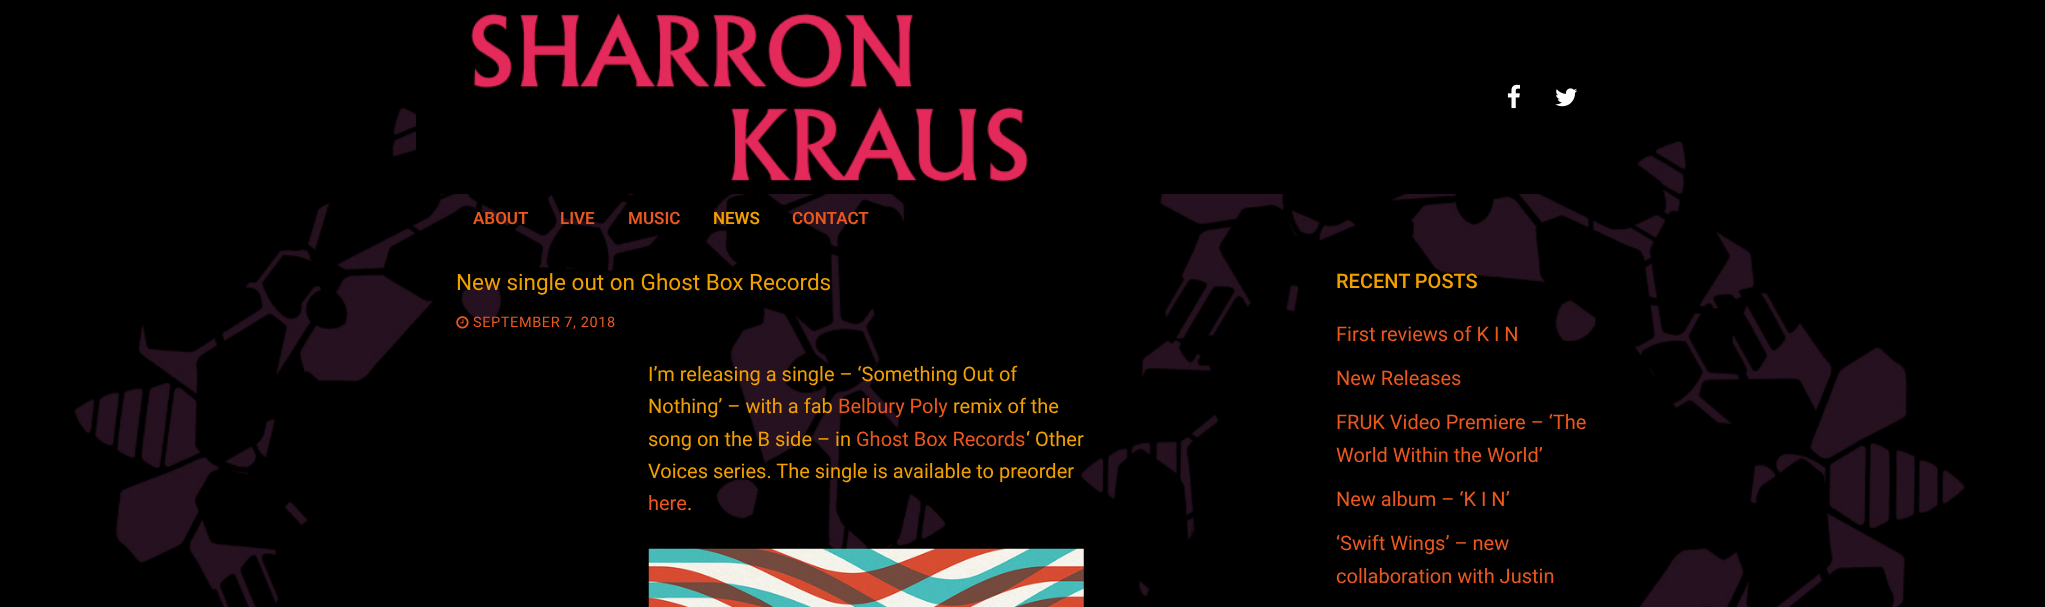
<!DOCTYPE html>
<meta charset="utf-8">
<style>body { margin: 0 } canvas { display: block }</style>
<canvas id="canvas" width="2045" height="607"></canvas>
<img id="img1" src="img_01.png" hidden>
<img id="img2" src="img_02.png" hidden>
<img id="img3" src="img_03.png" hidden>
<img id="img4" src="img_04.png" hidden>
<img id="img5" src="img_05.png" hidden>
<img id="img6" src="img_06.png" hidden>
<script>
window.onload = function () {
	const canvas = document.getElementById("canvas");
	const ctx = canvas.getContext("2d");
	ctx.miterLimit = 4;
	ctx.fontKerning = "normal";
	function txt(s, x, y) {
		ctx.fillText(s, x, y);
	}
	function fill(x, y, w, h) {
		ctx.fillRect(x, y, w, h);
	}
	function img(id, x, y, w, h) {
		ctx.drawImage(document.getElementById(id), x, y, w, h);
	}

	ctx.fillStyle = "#000000";
	fill(0, 0, 2045, 607);
	img("img1", 74, 58, 1891, 549);
	fill(416, 58, 1146, 136);
	img("img2", 471, 13, 557, 169);
	img("img3", 1507, 84, 13, 25);
	img("img4", 1555, 88, 23, 19);
	img("img5", 456, 316, 13, 13);
	img("img6", 648, 548, 436, 59);
	ctx.font = "600 17px Roboto";
	ctx.fillStyle = "#EA581F";
	txt("ABOUT", 473, 224);
	txt("LIVE", 560, 224);
	txt("MUSIC", 628, 224);
	ctx.fillStyle = "#F2A000";
	txt("NEWS", 713, 224);
	ctx.fillStyle = "#EA581F";
	txt("CONTACT", 792, 224);
	ctx.font = "22.5px Roboto";
	ctx.fillStyle = "#F2A000";
	txt("New single out on Ghost Box Records", 456, 290);
	ctx.letterSpacing = "0.6px";
	ctx.font = "14.5px Roboto";
	ctx.fillStyle = "#EA581F";
	txt("SEPTEMBER 7, 2018", 473, 327);
	ctx.letterSpacing = "0px";
	ctx.font = "20px Roboto";
	ctx.fillStyle = "#F2A000";
	txt("I’m releasing a single – ‘Something Out of", 648, 381);
	txt("Nothing’ – with a fab", 648, 413);
	ctx.fillStyle = "#EA581F";
	txt("Belbury Poly", 838, 413);
	ctx.fillStyle = "#F2A000";
	txt("remix of the", 953, 413);
	txt("song on the B side – in", 648, 446);
	ctx.fillStyle = "#EA581F";
	txt("Ghost Box Records", 856, 446);
	ctx.fillStyle = "#F2A000";
	txt("‘ Other", 1026, 446);
	txt("Voices series. The single is available to preorder", 648, 478);
	ctx.fillStyle = "#EA581F";
	txt("here", 648, 510);
	ctx.fillStyle = "#F2A000";
	txt(".", 687, 510);
	ctx.font = "500 20px Roboto";
	txt("RECENT POSTS", 1336, 288);
	ctx.font = "20px Roboto";
	ctx.fillStyle = "#EA581F";
	txt("First reviews of K I N", 1336, 341);
	txt("New Releases", 1336, 385);
	txt("FRUK Video Premiere – ‘The", 1336, 429);
	txt("World Within the World’", 1336, 462);
	txt("New album – ‘K I N’", 1336, 506);
	txt("‘Swift Wings’ – new", 1336, 550);
	txt("collaboration with Justin", 1336, 583);
};
</script>
